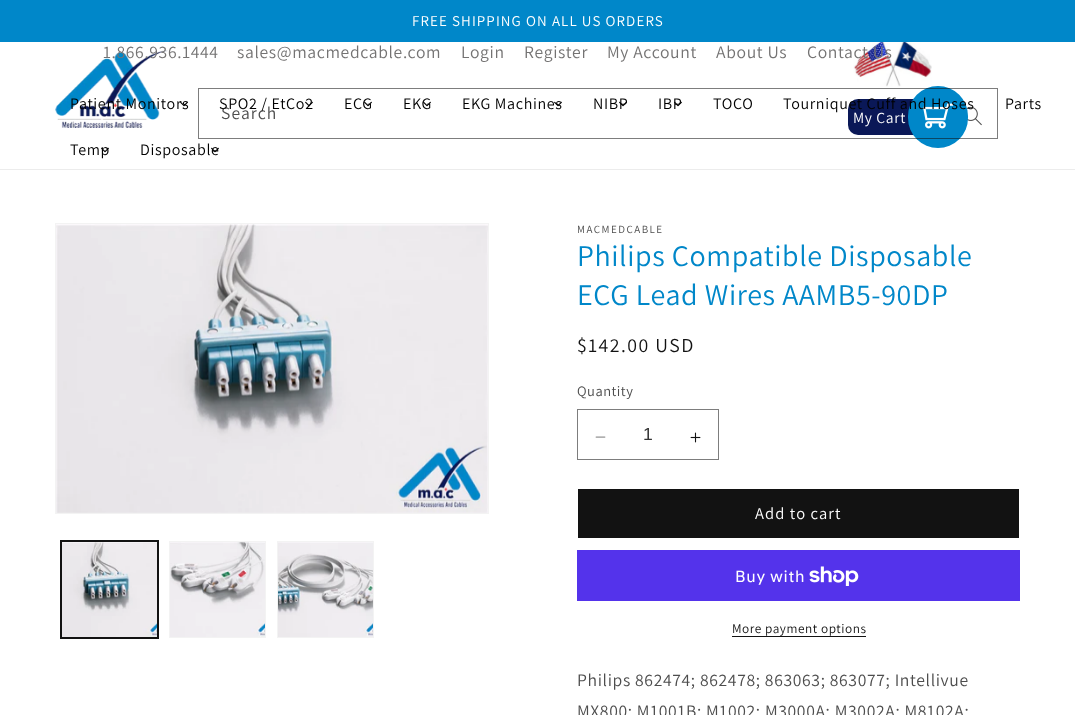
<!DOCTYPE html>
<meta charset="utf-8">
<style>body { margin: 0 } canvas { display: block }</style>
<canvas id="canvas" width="1075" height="715"></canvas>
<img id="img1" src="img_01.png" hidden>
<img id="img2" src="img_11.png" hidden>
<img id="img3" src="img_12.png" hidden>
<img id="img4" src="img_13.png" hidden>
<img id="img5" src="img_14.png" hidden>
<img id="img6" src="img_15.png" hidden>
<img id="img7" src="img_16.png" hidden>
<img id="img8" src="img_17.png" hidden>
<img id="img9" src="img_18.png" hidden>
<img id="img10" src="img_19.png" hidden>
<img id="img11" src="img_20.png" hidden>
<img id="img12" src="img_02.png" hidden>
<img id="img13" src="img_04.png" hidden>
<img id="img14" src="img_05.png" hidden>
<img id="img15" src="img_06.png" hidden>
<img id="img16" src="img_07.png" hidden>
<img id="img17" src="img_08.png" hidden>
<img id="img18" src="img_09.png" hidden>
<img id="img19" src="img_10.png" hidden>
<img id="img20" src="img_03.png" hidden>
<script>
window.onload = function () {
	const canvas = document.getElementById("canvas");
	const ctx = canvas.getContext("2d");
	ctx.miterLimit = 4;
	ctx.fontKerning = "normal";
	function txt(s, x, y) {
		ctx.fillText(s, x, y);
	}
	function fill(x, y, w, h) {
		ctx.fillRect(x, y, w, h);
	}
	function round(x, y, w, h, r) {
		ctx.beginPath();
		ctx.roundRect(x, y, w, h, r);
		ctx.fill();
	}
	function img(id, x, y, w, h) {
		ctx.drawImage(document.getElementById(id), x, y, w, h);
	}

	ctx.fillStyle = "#FFFFFF";
	fill(0, 0, 1075, 715);
	ctx.fillStyle = "#0087C9";
	fill(0, 0, 1075, 42);
	ctx.fillStyle = "#ECECEC";
	fill(0, 169, 1075, 1);
	img("img1", 55, 50, 113, 78);
	img("img2", 966, 106, 16, 20);
	img("img3", 853, 42, 79, 45);
	ctx.fillStyle = "#0A1857";
	round(848, 99, 100, 36, 10);
	ctx.fillStyle = "#0087C9";
	round(908, 86, 60, 62, 30);
	img("img4", 923, 103, 30, 26);
	ctx.strokeStyle = "#F3F3F3";
	ctx.strokeRect(55.5, 223.5, 433, 290);
	img("img5", 56, 224, 432, 289);
	ctx.strokeStyle = "#121212";
	ctx.strokeRect(60.5, 540.5, 98, 98);
	ctx.strokeRect(61.5, 541.5, 96, 96);
	img("img6", 62, 542, 95, 95);
	ctx.strokeStyle = "#F3F3F3";
	ctx.strokeRect(169.5, 541.5, 96, 96);
	img("img7", 170, 542, 95, 95);
	ctx.strokeRect(277.5, 541.5, 96, 96);
	img("img8", 278, 542, 95, 95);
	img("img9", 595, 436, 11, 2);
	img("img10", 690, 432, 11, 11);
	ctx.strokeStyle = "#7D7D7D";
	ctx.strokeRect(577.5, 409.5, 141, 50);
	ctx.fillStyle = "#121212";
	fill(578, 489, 441, 49);
	ctx.fillStyle = "#5433EB";
	fill(577, 550, 443, 51);
	img("img11", 809, 566, 50, 20);
	ctx.fillStyle = "#121212";
	fill(732, 636, 134, 1);
	ctx.letterSpacing = "1.1px";
	ctx.font = "15px Assistant";
	ctx.fillStyle = "#FFFFFF";
	txt("FREE SHIPPING ON ALL US ORDERS", 412, 26);
	ctx.letterSpacing = "0.65px";
	ctx.font = "17.6px Assistant";
	ctx.fillStyle = "#747373";
	txt("1.866.936.1444", 103, 58);
	txt("sales@macmedcable.com", 237, 58);
	txt("Login", 461, 58);
	txt("Register", 524, 58);
	txt("My Account", 607, 58);
	txt("About Us", 716, 58);
	txt("Contact Us", 807, 58);
	ctx.font = "16px Assistant";
	ctx.fillStyle = "#000000";
	txt("Patient Monitors", 70, 109);
	img("img12", 180, 101, 8, 6);
	txt("ECG", 344, 109);
	img("img13", 364, 101, 8, 6);
	txt("EKG", 403, 109);
	img("img14", 423, 101, 8, 6);
	txt("EKG Machines", 462, 109);
	img("img15", 554, 101, 8, 6);
	txt("NIBP", 593, 109);
	img("img16", 619, 101, 8, 6);
	txt("IBP", 658, 109);
	img("img17", 674, 101, 8, 6);
	txt("TOCO", 713, 109);
	txt("Tourniquet Cuff and Hoses", 783, 109);
	txt("Parts", 1005, 109);
	txt("Temp", 70, 155);
	img("img18", 101, 147, 8, 6);
	txt("Disposable", 140, 155);
	img("img19", 211, 147, 8, 6);
	ctx.letterSpacing = "1.1px";
	ctx.font = "17.6px Assistant";
	ctx.fillStyle = "#4D4D4D";
	txt("Search", 221, 119);
	ctx.letterSpacing = "0.65px";
	ctx.font = "16px Assistant";
	ctx.fillStyle = "#000000";
	txt("SPO2 / EtCo2", 219, 109);
	img("img20", 305, 101, 8, 6);
	ctx.strokeStyle = "rgba(18, 18, 18, 0.55)";
	ctx.strokeRect(198.5, 88.5, 799, 50);
	ctx.font = "15.5px Assistant";
	ctx.fillStyle = "#FFFFFF";
	txt("My Cart", 853, 123);
	ctx.letterSpacing = "1.5px";
	ctx.font = "11px Assistant";
	ctx.fillStyle = "#4D4D4D";
	txt("MACMEDCABLE", 577, 233);
	ctx.letterSpacing = "0.6px";
	ctx.font = "30px Assistant";
	ctx.fillStyle = "#0087C9";
	txt("Philips Compatible Disposable", 577, 266);
	txt("ECG Lead Wires AAMB5-90DP", 577, 305);
	ctx.letterSpacing = "1.5px";
	ctx.font = "19.75px Assistant";
	ctx.fillStyle = "#121212";
	txt("$142.00 USD", 577, 352);
	ctx.letterSpacing = "0.5px";
	ctx.font = "14.5px Assistant";
	ctx.fillStyle = "#4D4D4D";
	txt("Quantity", 577, 396);
	ctx.letterSpacing = "0px";
	ctx.font = "17.6px Liberation Sans";
	ctx.fillStyle = "#363636";
	txt("1", 643, 440);
	ctx.letterSpacing = "1.1px";
	ctx.font = "16.5px Assistant";
	ctx.fillStyle = "#FFFFFF";
	txt("Add to cart", 755, 519);
	ctx.letterSpacing = "0.65px";
	ctx.font = "16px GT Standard";
	txt("Buy with", 735, 582);
	ctx.letterSpacing = "0.55px";
	ctx.font = "13.25px Assistant";
	ctx.fillStyle = "#121212";
	txt("More payment options", 732, 633);
	ctx.letterSpacing = "0.65px";
	ctx.font = "17.6px Assistant";
	ctx.fillStyle = "#4D4D4D";
	txt("Philips 862474; 862478; 863063; 863077; Intellivue", 577, 686);
	txt("MX800; M1001B; M1002; M3000A; M3002A; M8102A;", 577, 717);
};
</script>
